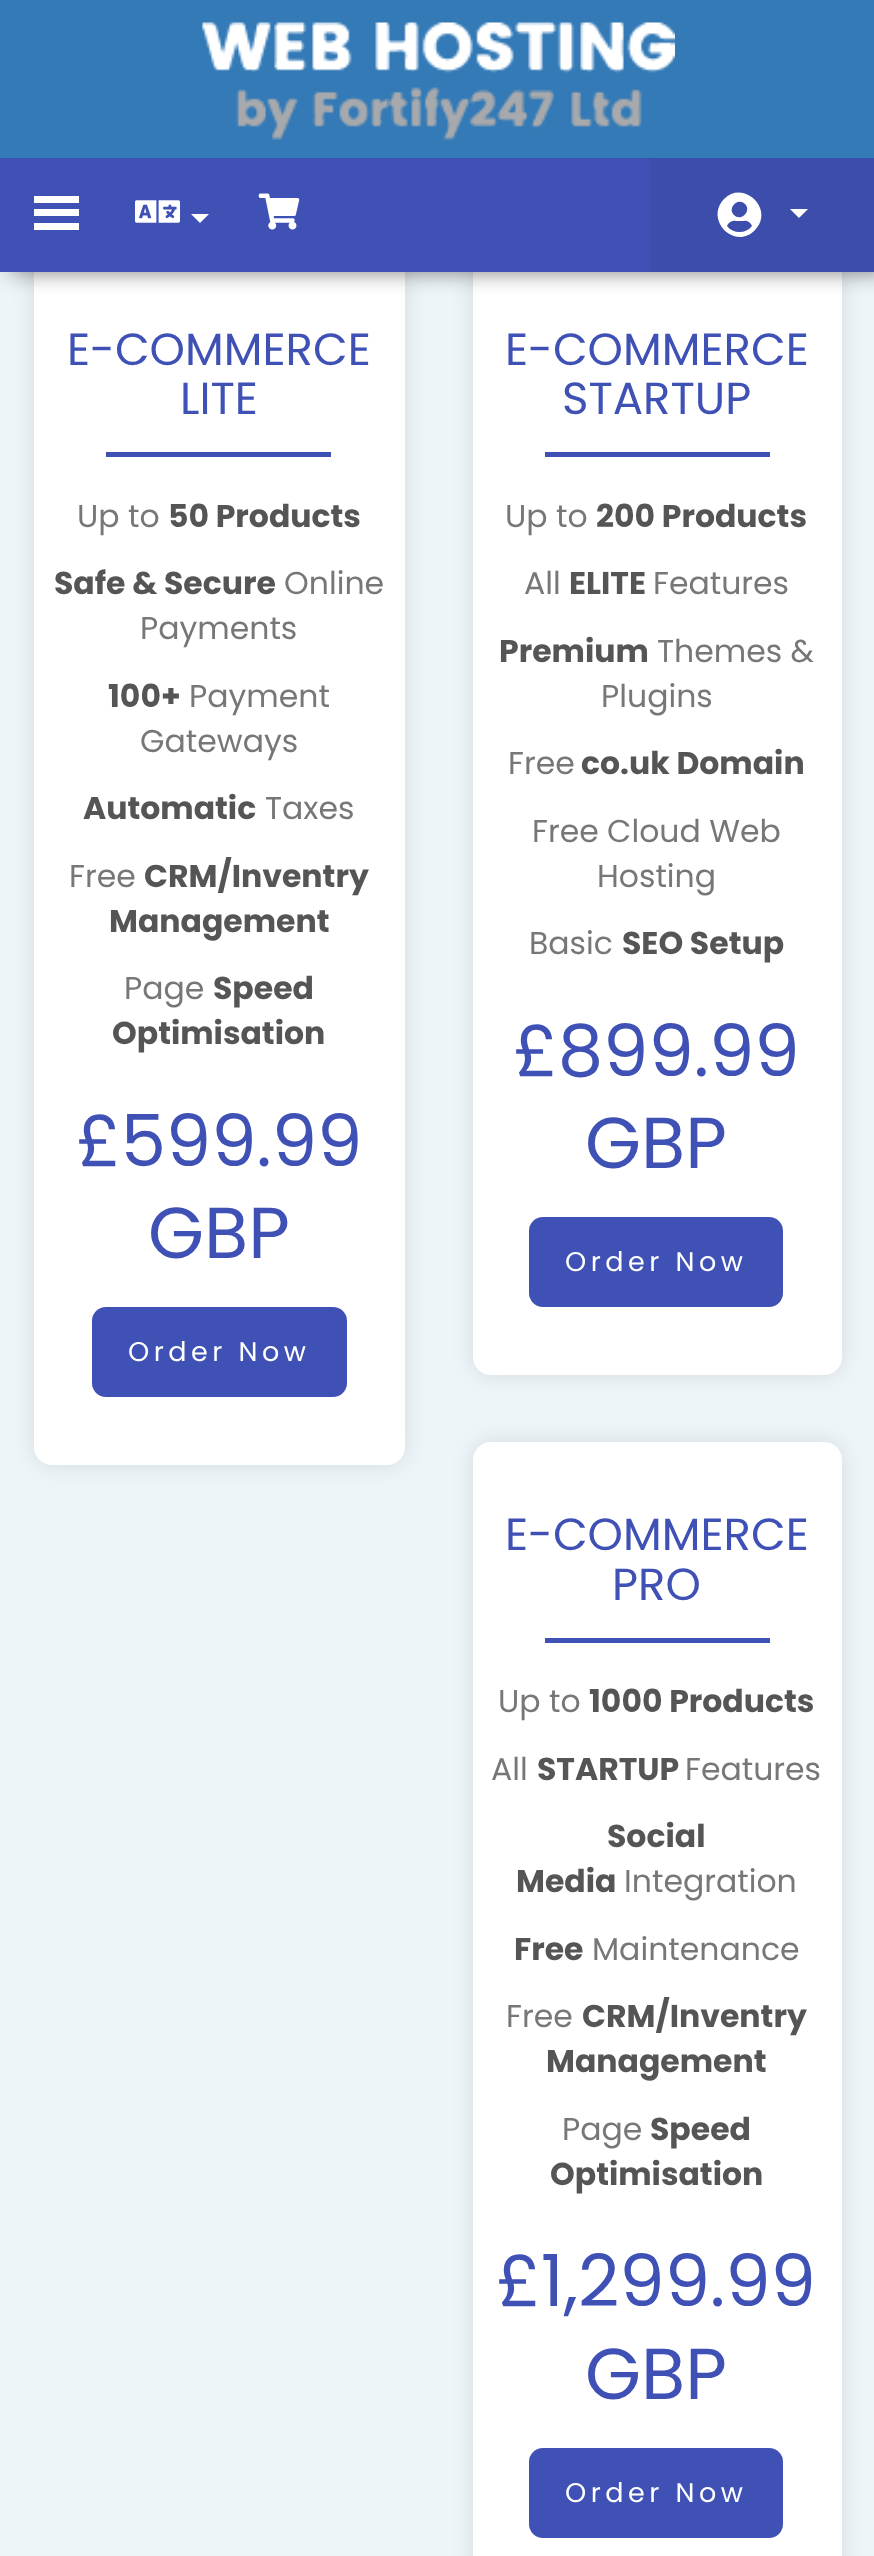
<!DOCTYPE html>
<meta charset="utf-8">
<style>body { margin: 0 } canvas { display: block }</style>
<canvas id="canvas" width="874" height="2556"></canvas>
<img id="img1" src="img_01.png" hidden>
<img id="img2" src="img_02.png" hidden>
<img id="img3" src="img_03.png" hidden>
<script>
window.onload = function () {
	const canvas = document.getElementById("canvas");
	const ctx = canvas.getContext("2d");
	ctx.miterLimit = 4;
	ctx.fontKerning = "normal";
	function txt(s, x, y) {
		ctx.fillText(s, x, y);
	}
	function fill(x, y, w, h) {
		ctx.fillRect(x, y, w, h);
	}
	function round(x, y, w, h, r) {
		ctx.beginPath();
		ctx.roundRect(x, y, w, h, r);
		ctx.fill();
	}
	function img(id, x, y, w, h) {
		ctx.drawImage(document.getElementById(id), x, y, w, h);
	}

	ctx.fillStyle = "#EEF5F9";
	fill(0, 0, 874, 2556);
	ctx.fillStyle = "rgba(0, 0, 0, 0.1)";
	ctx.filter = "blur(11px)";
	ctx.beginPath();
	ctx.roundRect(34, 257, 371, 1208, 18);
	ctx.fill();
	ctx.filter = "none";
	ctx.fillStyle = "#FFFFFF";
	round(34, 257, 371, 1208, 18);
	ctx.fillStyle = "rgba(0, 0, 0, 0.1)";
	ctx.filter = "blur(11px)";
	ctx.beginPath();
	ctx.roundRect(473, 257, 369, 1118, 18);
	ctx.fill();
	ctx.filter = "none";
	ctx.fillStyle = "#FFFFFF";
	round(473, 257, 369, 1118, 18);
	ctx.fillStyle = "rgba(0, 0, 0, 0.5)";
	ctx.filter = "blur(11px)";
	ctx.beginPath();
	ctx.rect(11, 0, 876, 272);
	ctx.fill();
	ctx.filter = "none";
	ctx.fillStyle = "#3F51B5";
	fill(0, 158, 650, 114);
	ctx.fillStyle = "#337AB7";
	fill(0, 0, 874, 158);
	img("img1", 202, 22, 473, 118);
	ctx.fillStyle = "#FFFFFF";
	fill(34, 196, 45, 7);
	fill(34, 209, 45, 7);
	fill(34, 223, 45, 7);
	img("img2", 135, 200, 45, 23);
	ctx.beginPath();
	ctx.moveTo(191, 214);
	ctx.lineTo(209, 214);
	ctx.lineTo(200, 223);
	ctx.closePath();
	ctx.fill();
	img("img3", 258, 193, 42, 37);
	ctx.fillStyle = "#3C4DAC";
	fill(650, 158, 224, 114);
	ctx.fillStyle = "#FFFFFF";
	ctx.beginPath();
	ctx.moveTo(724, 199);
	ctx.bezierCurveTo(744, 179, 775, 210, 755, 230);
	ctx.bezierCurveTo(735, 251, 704, 220, 724, 199);
	ctx.closePath();
	ctx.moveTo(745, 204);
	ctx.bezierCurveTo(738, 197, 727, 208, 734, 215);
	ctx.bezierCurveTo(741, 222, 752, 211, 745, 204);
	ctx.closePath();
	ctx.moveTo(727, 226);
	ctx.bezierCurveTo(733, 234, 746, 234, 752, 226);
	ctx.bezierCurveTo(751, 223, 747, 220, 744, 221);
	ctx.lineTo(740, 221);
	ctx.lineTo(736, 221);
	ctx.bezierCurveTo(732, 220, 728, 223, 727, 226);
	ctx.closePath();
	ctx.fill();
	ctx.beginPath();
	ctx.moveTo(790, 209);
	ctx.lineTo(808, 209);
	ctx.lineTo(799, 218);
	ctx.closePath();
	ctx.fill();
	ctx.fillStyle = "#3F51B5";
	fill(106, 452, 225, 5);
	round(92, 1307, 255, 90, 14);
	fill(545, 452, 225, 5);
	round(529, 1217, 254, 90, 14);
	ctx.fillStyle = "rgba(0, 0, 0, 0.1)";
	ctx.filter = "blur(11px)";
	ctx.beginPath();
	ctx.roundRect(473, 1442, 369, 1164, 18);
	ctx.fill();
	ctx.filter = "none";
	ctx.fillStyle = "#FFFFFF";
	round(473, 1442, 369, 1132, 18);
	ctx.fillStyle = "#3F51B5";
	fill(545, 1638, 225, 5);
	round(529, 2448, 254, 90, 14);
	ctx.font = "45px Poppins";
	txt("E-COMMERCE", 67, 365);
	txt("LITE", 180, 414);
	ctx.font = "31.5px Poppins";
	ctx.fillStyle = "#777777";
	txt("Up to", 77, 527);
	ctx.font = "bold 31.5px Poppins";
	ctx.fillStyle = "#555555";
	txt("50 Products", 168, 527);
	txt("Safe & Secure", 54, 594);
	ctx.font = "31.5px Poppins";
	ctx.fillStyle = "#777777";
	txt("Online", 284, 594);
	txt("Payments", 140, 639);
	ctx.font = "bold 31.5px Poppins";
	ctx.fillStyle = "#555555";
	txt("100+", 108, 707);
	ctx.font = "31.5px Poppins";
	ctx.fillStyle = "#777777";
	txt("Payment", 189, 707);
	txt("Gateways", 140, 752);
	ctx.font = "bold 31.5px Poppins";
	ctx.fillStyle = "#555555";
	txt("Automatic", 83, 819);
	ctx.font = "31.5px Poppins";
	ctx.fillStyle = "#777777";
	txt("Taxes", 265, 819);
	txt("Free", 69, 887);
	ctx.font = "bold 31.5px Poppins";
	ctx.fillStyle = "#555555";
	txt("CRM/Inventry", 144, 887);
	txt("Management", 109, 932);
	ctx.font = "31.5px Poppins";
	ctx.fillStyle = "#777777";
	txt("Page", 124, 999);
	ctx.font = "bold 31.5px Poppins";
	ctx.fillStyle = "#555555";
	txt("Speed", 213, 999);
	txt("Optimisation", 112, 1044);
	ctx.font = "72px Poppins";
	ctx.fillStyle = "#3F51B5";
	txt("£599.99", 76, 1166);
	txt("GBP", 148, 1258);
	ctx.letterSpacing = "4.5px";
	ctx.font = "27px Poppins";
	ctx.fillStyle = "#FFFFFF";
	txt("Order Now", 128, 1361);
	ctx.letterSpacing = "0px";
	ctx.font = "45px Poppins";
	ctx.fillStyle = "#3F51B5";
	txt("E-COMMERCE", 505, 365);
	txt("STARTUP", 562, 414);
	ctx.font = "31.5px Poppins";
	ctx.fillStyle = "#777777";
	txt("Up to", 505, 527);
	ctx.font = "bold 31.5px Poppins";
	ctx.fillStyle = "#555555";
	txt("200 Products", 596, 527);
	ctx.font = "31.5px Poppins";
	ctx.fillStyle = "#777777";
	txt("All", 524, 594);
	ctx.font = "bold 31.5px Poppins";
	ctx.fillStyle = "#555555";
	txt("ELITE", 569, 594);
	ctx.font = "31.5px Poppins";
	ctx.fillStyle = "#777777";
	txt("Features", 653, 594);
	ctx.font = "bold 31.5px Poppins";
	ctx.fillStyle = "#555555";
	txt("Premium", 499, 662);
	ctx.font = "31.5px Poppins";
	ctx.fillStyle = "#777777";
	txt("Themes &", 657, 662);
	txt("Plugins", 601, 707);
	txt("Free", 508, 774);
	ctx.font = "bold 31.5px Poppins";
	ctx.fillStyle = "#555555";
	txt("co.uk Domain", 581, 774);
	ctx.font = "31.5px Poppins";
	ctx.fillStyle = "#777777";
	txt("Free Cloud Web", 532, 842);
	txt("Hosting", 597, 887);
	txt("Basic", 529, 954);
	ctx.font = "bold 31.5px Poppins";
	ctx.fillStyle = "#555555";
	txt("SEO Setup", 622, 954);
	ctx.font = "72px Poppins";
	ctx.fillStyle = "#3F51B5";
	txt("£899.99", 513, 1076);
	txt("GBP", 585, 1168);
	ctx.letterSpacing = "4.5px";
	ctx.font = "27px Poppins";
	ctx.fillStyle = "#FFFFFF";
	txt("Order Now", 565, 1271);
	ctx.letterSpacing = "0px";
	ctx.font = "45px Poppins";
	ctx.fillStyle = "#3F51B5";
	txt("E-COMMERCE", 505, 1550);
	txt("PRO", 612, 1600);
	ctx.font = "31.5px Poppins";
	ctx.fillStyle = "#777777";
	txt("Up to", 498, 1712);
	ctx.font = "bold 31.5px Poppins";
	ctx.fillStyle = "#555555";
	txt("1000 Products", 589, 1712);
	ctx.font = "31.5px Poppins";
	ctx.fillStyle = "#777777";
	txt("All", 491, 1780);
	ctx.font = "bold 31.5px Poppins";
	ctx.fillStyle = "#555555";
	txt("STARTUP", 537, 1780);
	ctx.font = "31.5px Poppins";
	ctx.fillStyle = "#777777";
	txt("Features", 685, 1780);
	ctx.font = "bold 31.5px Poppins";
	ctx.fillStyle = "#555555";
	txt("Social", 607, 1847);
	txt("Media", 516, 1892);
	ctx.font = "31.5px Poppins";
	ctx.fillStyle = "#777777";
	txt("Integration", 624, 1892);
	ctx.font = "bold 31.5px Poppins";
	ctx.fillStyle = "#555555";
	txt("Free", 514, 1960);
	ctx.font = "31.5px Poppins";
	ctx.fillStyle = "#777777";
	txt("Maintenance", 592, 1960);
	txt("Free", 506, 2027);
	ctx.font = "bold 31.5px Poppins";
	ctx.fillStyle = "#555555";
	txt("CRM/Inventry", 582, 2027);
	txt("Management", 546, 2072);
	ctx.font = "31.5px Poppins";
	ctx.fillStyle = "#777777";
	txt("Page", 562, 2140);
	ctx.font = "bold 31.5px Poppins";
	ctx.fillStyle = "#555555";
	txt("Speed", 650, 2140);
	txt("Optimisation", 550, 2185);
	ctx.font = "72px Poppins";
	ctx.fillStyle = "#3F51B5";
	txt("£1,299.99", 496, 2306);
	txt("GBP", 585, 2399);
	ctx.letterSpacing = "4.5px";
	ctx.font = "27px Poppins";
	ctx.fillStyle = "#FFFFFF";
	txt("Order Now", 565, 2502);
};
</script>
